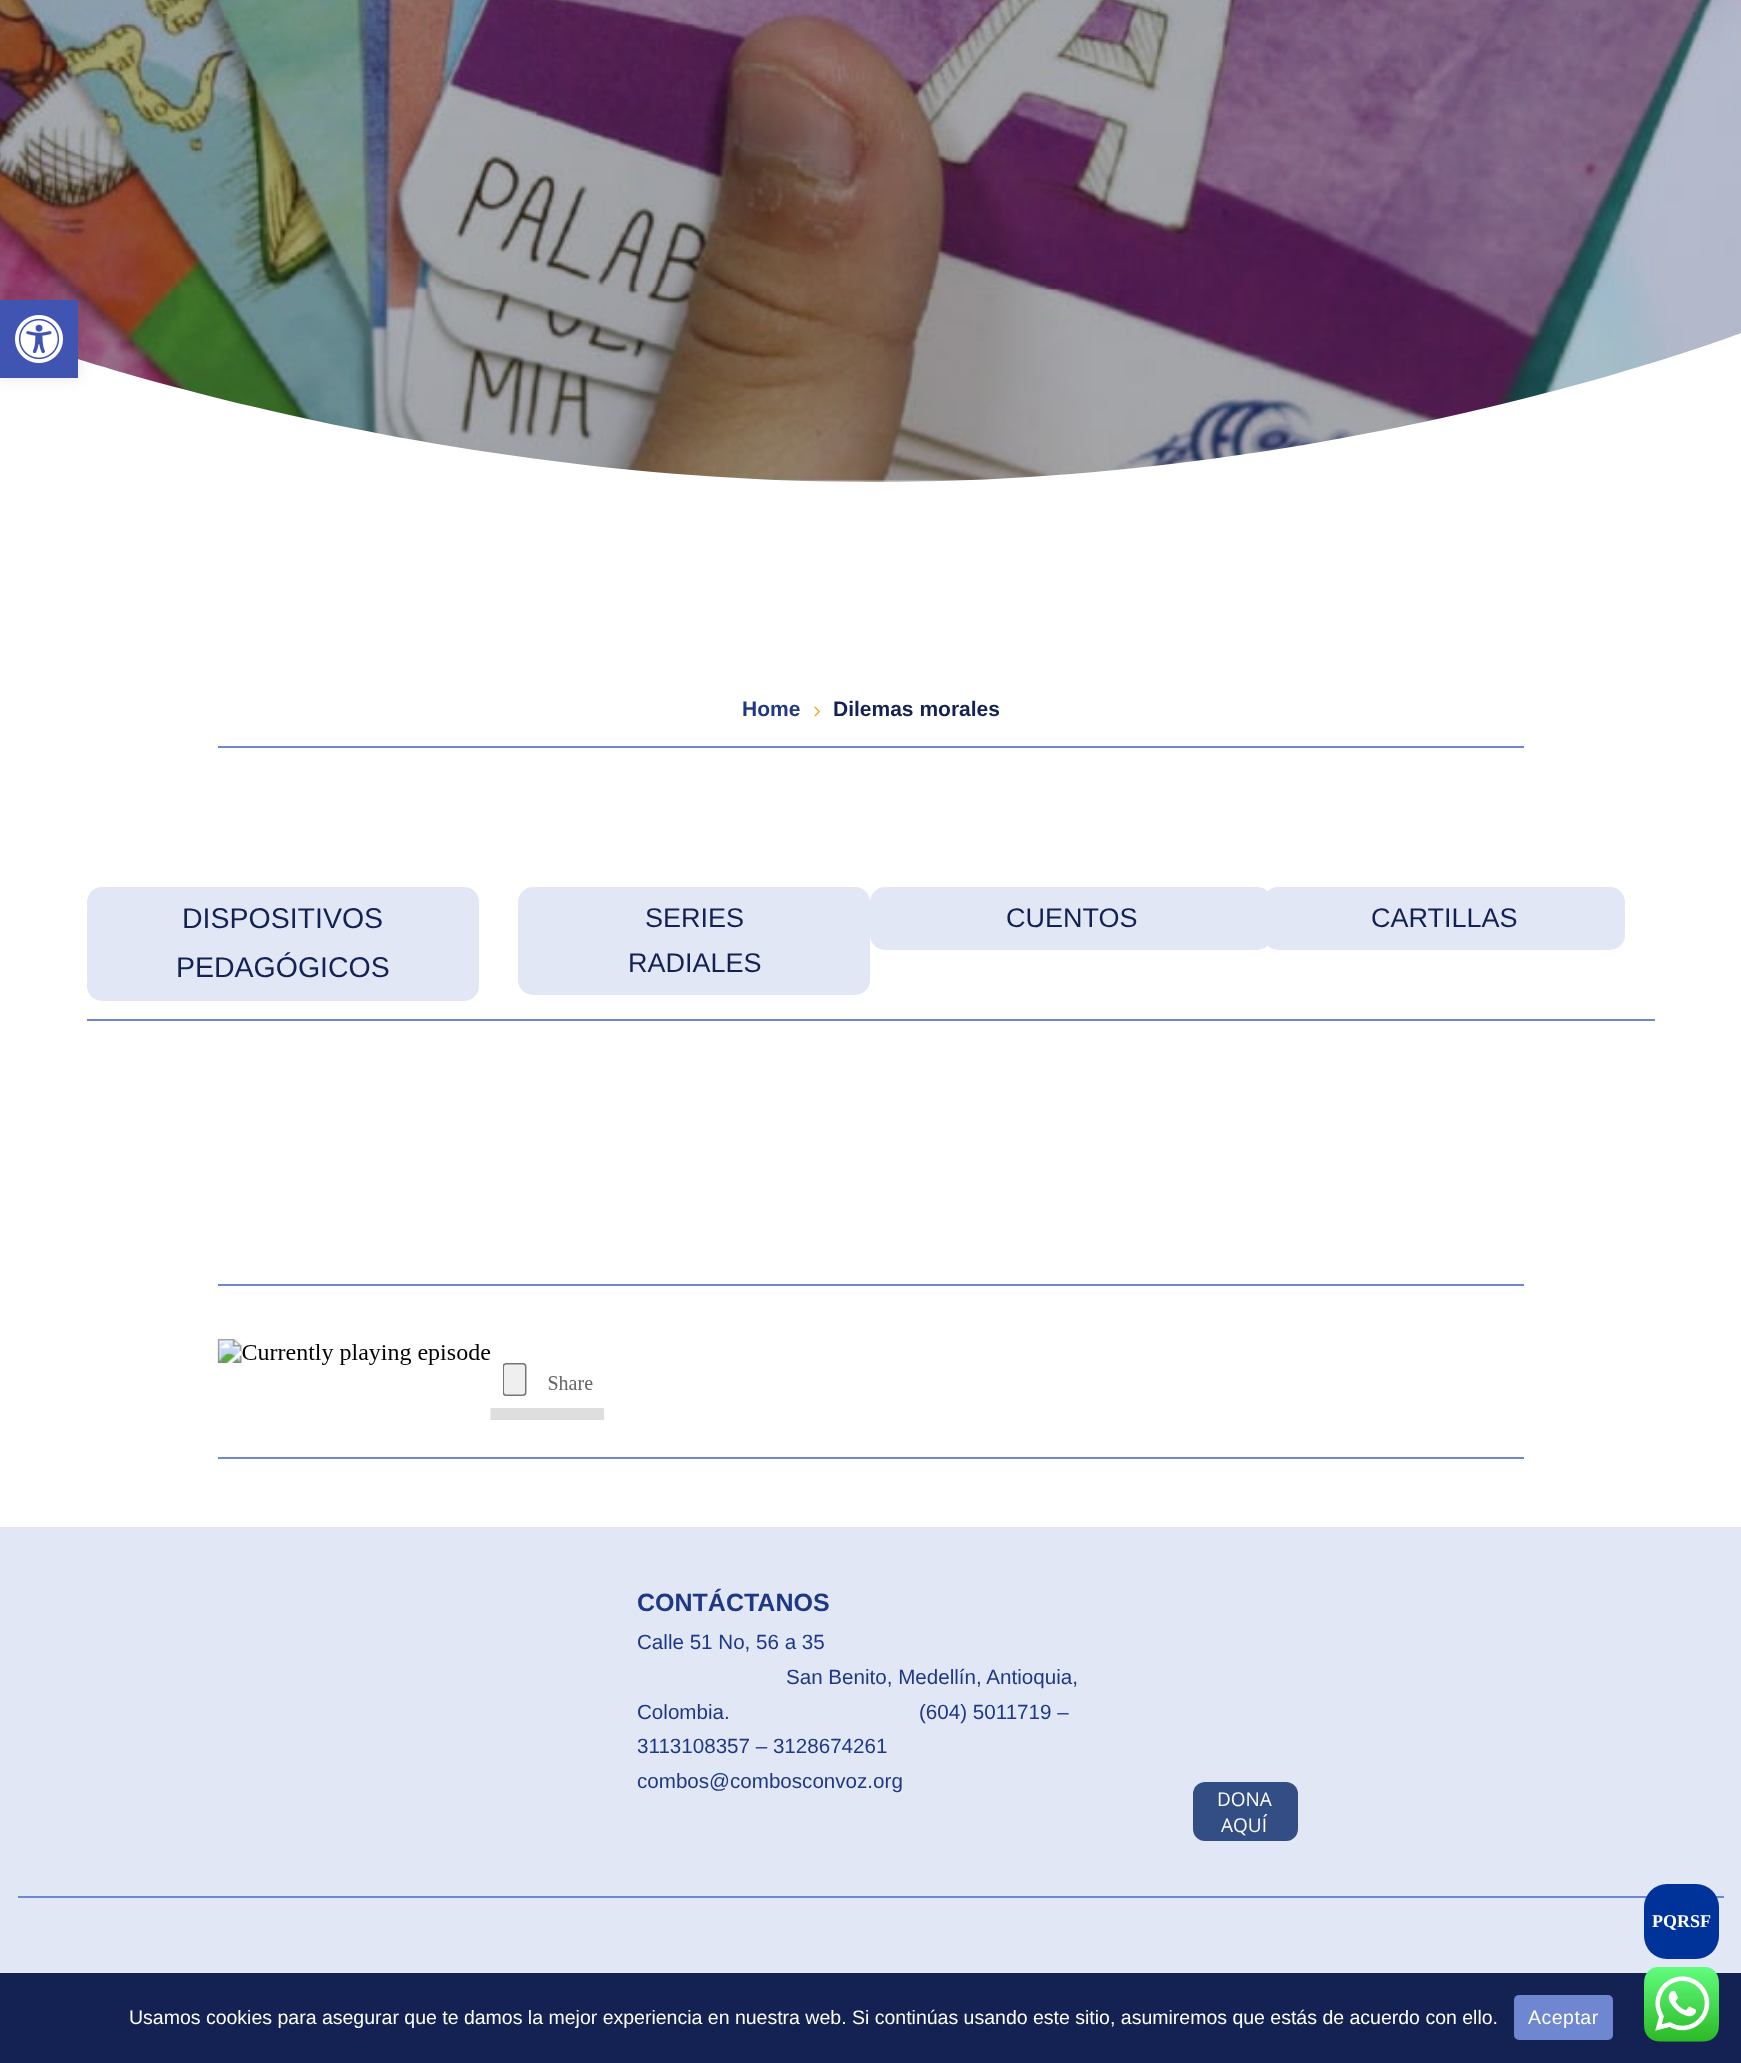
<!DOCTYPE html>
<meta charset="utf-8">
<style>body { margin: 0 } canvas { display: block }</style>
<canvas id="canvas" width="1741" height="2063"></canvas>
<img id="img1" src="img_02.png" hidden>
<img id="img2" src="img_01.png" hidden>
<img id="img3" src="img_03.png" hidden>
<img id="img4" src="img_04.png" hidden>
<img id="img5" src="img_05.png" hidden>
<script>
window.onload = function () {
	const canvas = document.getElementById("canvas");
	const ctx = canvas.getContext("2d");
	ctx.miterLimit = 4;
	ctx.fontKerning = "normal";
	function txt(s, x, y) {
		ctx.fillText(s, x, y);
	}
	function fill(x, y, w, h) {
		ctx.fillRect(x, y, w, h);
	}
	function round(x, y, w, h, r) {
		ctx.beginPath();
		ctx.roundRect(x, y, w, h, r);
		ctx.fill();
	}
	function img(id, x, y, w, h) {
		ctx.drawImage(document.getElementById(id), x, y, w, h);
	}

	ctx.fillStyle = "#FFFFFF";
	fill(0, 0, 1741, 2063);
	img("img1", 0, 0, 1741, 482);
	ctx.beginPath();
	ctx.moveTo(1741, 483);
	ctx.lineTo(1741, 333);
	ctx.bezierCurveTo(1741, 333, 1352, 483, 871, 482);
	ctx.bezierCurveTo(390, 481, 0, 333, 0, 333);
	ctx.lineTo(0, 483);
	ctx.closePath();
	ctx.fill();
	ctx.fillStyle = "rgba(0, 0, 0, 0.1)";
	ctx.filter = "blur(7.5px)";
	ctx.beginPath();
	ctx.rect(0, 300, 78, 78);
	ctx.fill();
	ctx.filter = "none";
	ctx.fillStyle = "#4054B2";
	fill(0, 300, 78, 78);
	img("img2", 15, 315, 48, 48);
	ctx.fillStyle = "#6F87D1";
	fill(218, 746, 1306, 2);
	img("img3", 814, 706, 6, 11);
	fill(87, 1019, 1568, 2);
	ctx.fillStyle = "#E2E7F6";
	round(87, 887, 392, 114, 15);
	round(518, 887, 352, 108, 15);
	round(870, 887, 402, 63, 15);
	round(1263, 887, 362, 63, 15);
	ctx.fillStyle = "#6F87D1";
	fill(218, 1284, 1306, 2);
	fill(218, 1457, 1306, 2);
	img("img4", 217, 1339, 388, 81);
	ctx.fillStyle = "#E2E7F6";
	fill(0, 1527, 1741, 446);
	ctx.fillStyle = "#6F87D1";
	fill(18, 1896, 1706, 2);
	ctx.fillStyle = "#334E84";
	round(1193, 1782, 105, 59, 12);
	ctx.fillStyle = "#003399";
	round(1644, 1884, 75, 75, 23);
	ctx.fillStyle = "#132252";
	fill(0, 1973, 1741, 90);
	ctx.fillStyle = "#6F87D1";
	round(1514, 1995, 99, 45, 5);
	img("img5", 1644, 1967, 75, 75);
	ctx.font = "bold 21px Liberation Sans";
	ctx.fillStyle = "#1F3884";
	txt("Home", 742, 716);
	ctx.fillStyle = "#132252";
	txt("Dilemas morales", 833, 716);
	ctx.font = "28.5px Liberation Sans";
	txt("DISPOSITIVOS", 182, 928);
	txt("PEDAGÓGICOS", 176, 977);
	ctx.font = "27px Liberation Sans";
	txt("SERIES", 645, 927);
	txt("RADIALES", 628, 972);
	txt("CUENTOS", 1006, 927);
	txt("CARTILLAS", 1371, 927);
	ctx.font = "bold 25px Liberation Sans";
	ctx.fillStyle = "#1F3884";
	txt("CONTÁCTANOS", 637, 1611);
	ctx.font = "20.6px Liberation Sans";
	txt("Calle 51 No, 56 a 35", 637, 1649);
	txt("San Benito, Medellín, Antioquia,", 786, 1684);
	txt("Colombia.", 637, 1719);
	txt("(604) 5011719 –", 919, 1719);
	txt("3113108357 – 3128674261", 637, 1753);
	txt("combos@combosconvoz.org", 637, 1788);
	ctx.font = "19px Open Sans";
	ctx.fillStyle = "#FFFFFF";
	txt("DONA", 1217, 1806);
	txt("AQUÍ", 1221, 1832);
	ctx.font = "bold 18px Liberation Serif";
	txt("PQRSF", 1652, 1927);
	ctx.font = "19.5px Liberation Sans";
	txt("Usamos cookies para asegurar que te damos la mejor experiencia en nuestra web. Si continúas usando este sitio, asumiremos que estás de acuerdo con ello.", 129, 2024);
	ctx.letterSpacing = "0.5px";
	txt("Aceptar", 1528, 2024);
};
</script>
